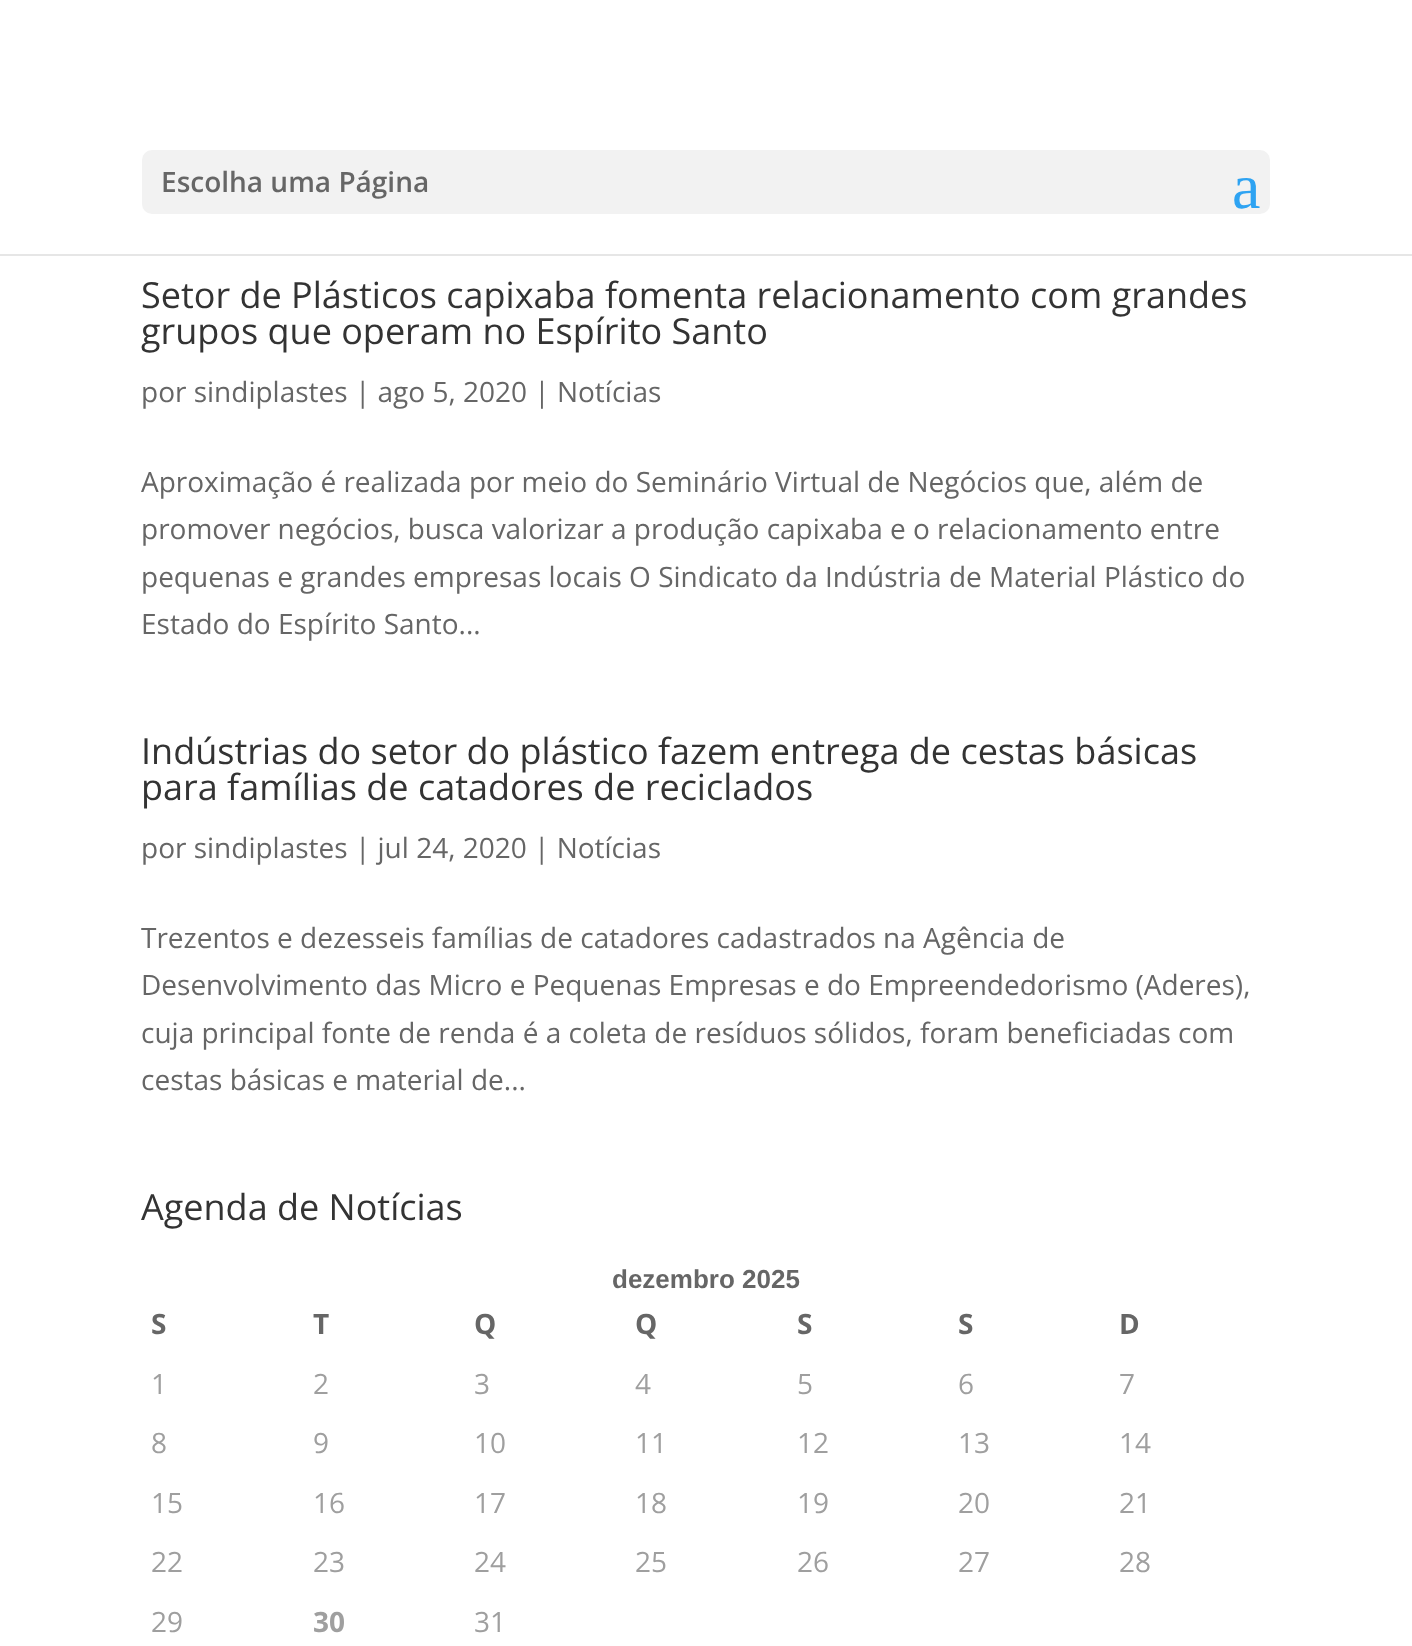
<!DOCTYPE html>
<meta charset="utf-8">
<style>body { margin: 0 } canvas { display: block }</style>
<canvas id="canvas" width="1412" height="1646"></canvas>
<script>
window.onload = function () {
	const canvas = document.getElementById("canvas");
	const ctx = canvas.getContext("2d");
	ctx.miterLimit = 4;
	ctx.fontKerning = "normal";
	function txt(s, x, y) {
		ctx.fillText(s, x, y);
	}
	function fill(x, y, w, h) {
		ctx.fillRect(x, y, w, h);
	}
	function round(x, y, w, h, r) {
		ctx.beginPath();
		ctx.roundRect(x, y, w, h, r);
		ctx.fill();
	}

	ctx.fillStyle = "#FFFFFF";
	fill(0, 0, 1412, 1646);
	ctx.fillStyle = "#E6E6E6";
	fill(0, 254, 1412, 2);
	ctx.fillStyle = "#F2F2F2";
	round(142, 150, 1128, 64, 10);
	ctx.font = "600 28px Open Sans";
	ctx.fillStyle = "#666666";
	txt("Escolha uma Página", 161, 192);
	ctx.font = "64px Liberation Serif";
	ctx.fillStyle = "#2EA3F2";
	txt("a", 1232, 208);
	ctx.font = "36px Open Sans";
	ctx.fillStyle = "#333333";
	txt("Setor de Plásticos capixaba fomenta relacionamento com grandes", 141, 308);
	txt("grupos que operam no Espírito Santo", 141, 344);
	ctx.font = "28px Open Sans";
	ctx.fillStyle = "#666666";
	txt("por sindiplastes | ago 5, 2020 | Notícias", 141, 402);
	txt("Aproximação é realizada por meio do Seminário Virtual de Negócios que, além de", 141, 492);
	txt("promover negócios, busca valorizar a produção capixaba e o relacionamento entre", 141, 539);
	txt("pequenas e grandes empresas locais O Sindicato da Indústria de Material Plástico do", 141, 587);
	txt("Estado do Espírito Santo...", 141, 634);
	ctx.font = "36px Open Sans";
	ctx.fillStyle = "#333333";
	txt("Indústrias do setor do plástico fazem entrega de cestas básicas", 141, 764);
	txt("para famílias de catadores de reciclados", 141, 800);
	ctx.font = "28px Open Sans";
	ctx.fillStyle = "#666666";
	txt("por sindiplastes | jul 24, 2020 | Notícias", 141, 858);
	txt("Trezentos e dezesseis famílias de catadores cadastrados na Agência de", 141, 948);
	txt("Desenvolvimento das Micro e Pequenas Empresas e do Empreendedorismo (Aderes),", 141, 995);
	txt("cuja principal fonte de renda é a coleta de resíduos sólidos, foram beneficiadas com", 141, 1043);
	txt("cestas básicas e material de...", 141, 1090);
	ctx.font = "36px Open Sans";
	ctx.fillStyle = "#333333";
	txt("Agenda de Notícias", 141, 1220);
	ctx.font = "bold 26px Liberation Sans";
	ctx.fillStyle = "#666666";
	txt("dezembro 2025", 612, 1288);
	ctx.font = "bold 28px Open Sans";
	txt("S", 151, 1334);
	txt("T", 313, 1334);
	txt("Q", 474, 1334);
	txt("Q", 635, 1334);
	txt("S", 797, 1334);
	txt("S", 958, 1334);
	txt("D", 1119, 1334);
	ctx.font = "28px Open Sans";
	ctx.fillStyle = "#9F9F9F";
	txt("1", 151, 1394);
	txt("2", 313, 1394);
	txt("3", 474, 1394);
	txt("4", 635, 1394);
	txt("5", 797, 1394);
	txt("6", 958, 1394);
	txt("7", 1119, 1394);
	txt("8", 151, 1453);
	txt("9", 313, 1453);
	txt("10", 474, 1453);
	txt("11", 635, 1453);
	txt("12", 797, 1453);
	txt("13", 958, 1453);
	txt("14", 1119, 1453);
	txt("15", 151, 1513);
	txt("16", 313, 1513);
	txt("17", 474, 1513);
	txt("18", 635, 1513);
	txt("19", 797, 1513);
	txt("20", 958, 1513);
	txt("21", 1119, 1513);
	txt("22", 151, 1572);
	txt("23", 313, 1572);
	txt("24", 474, 1572);
	txt("25", 635, 1572);
	txt("26", 797, 1572);
	txt("27", 958, 1572);
	txt("28", 1119, 1572);
	txt("29", 151, 1632);
	ctx.font = "bold 28px Open Sans";
	txt("30", 313, 1632);
	ctx.font = "28px Open Sans";
	txt("31", 474, 1632);
};
</script>
